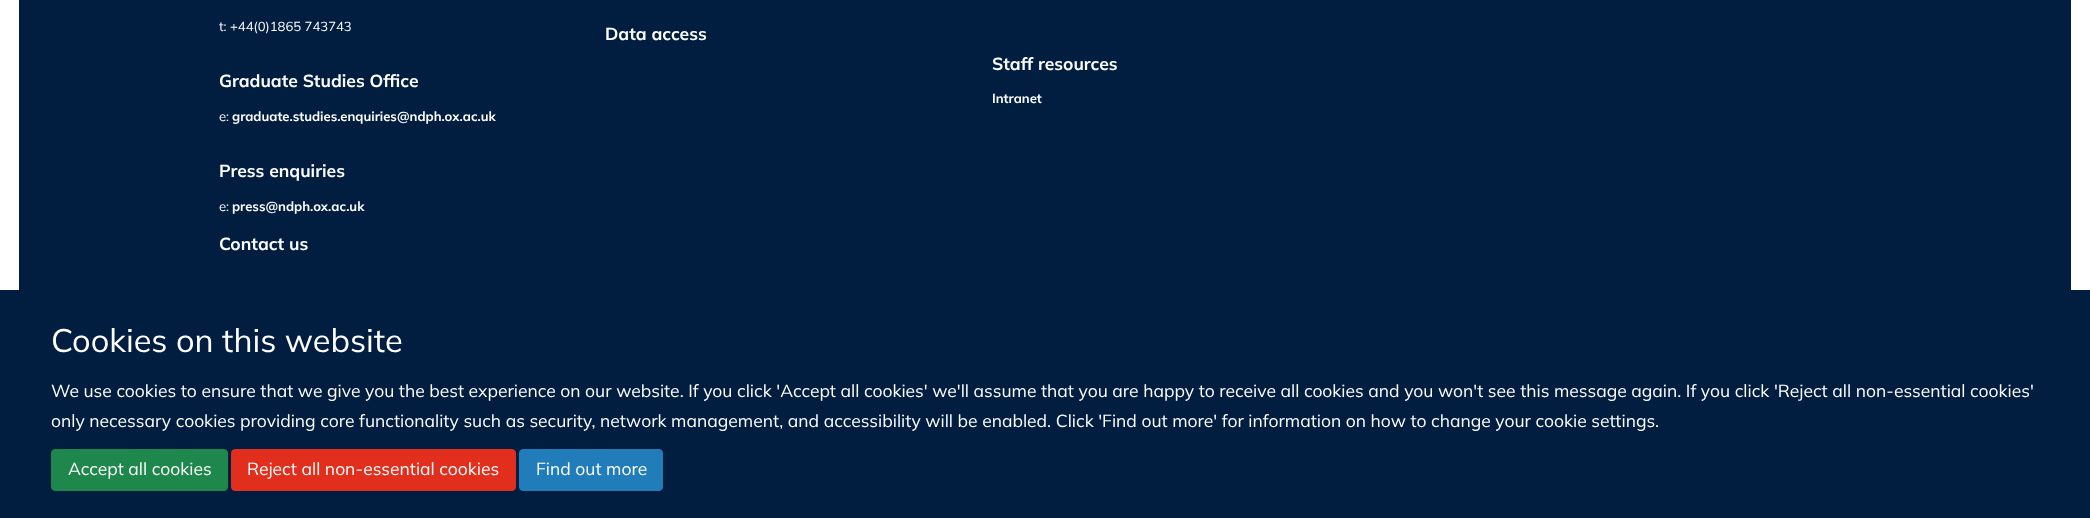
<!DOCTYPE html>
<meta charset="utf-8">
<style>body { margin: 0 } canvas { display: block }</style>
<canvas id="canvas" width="2090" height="518"></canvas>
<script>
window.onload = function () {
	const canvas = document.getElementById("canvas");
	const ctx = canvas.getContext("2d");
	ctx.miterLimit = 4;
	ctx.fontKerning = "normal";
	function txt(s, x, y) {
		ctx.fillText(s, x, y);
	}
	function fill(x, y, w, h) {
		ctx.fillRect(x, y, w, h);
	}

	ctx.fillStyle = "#FFFFFF";
	fill(0, 0, 2090, 518);
	ctx.fillStyle = "#011E41";
	fill(19, 0, 2052, 290);
	fill(0, 290, 2090, 228);
	ctx.fillStyle = "#1E874B";
	ctx.beginPath();
	ctx.roundRect(51.5, 449.5, 176, 41, 3.5);
	ctx.fill();
	ctx.strokeStyle = "#1E874B";
	ctx.stroke();
	ctx.fillStyle = "#E22E1C";
	ctx.beginPath();
	ctx.roundRect(231.5, 449.5, 284, 41, 3.5);
	ctx.fill();
	ctx.strokeStyle = "#E22E1C";
	ctx.stroke();
	ctx.fillStyle = "#217CBA";
	ctx.beginPath();
	ctx.roundRect(519.5, 449.5, 143, 41, 3.5);
	ctx.fill();
	ctx.strokeStyle = "#217CBA";
	ctx.stroke();
	ctx.font = "13.1px Mulish";
	ctx.fillStyle = "#FFFFFF";
	txt("t: +44(0)1865 743743", 219, 31);
	ctx.font = "bold 17.5px Mulish";
	txt("Graduate Studies Office", 219, 87);
	ctx.font = "13.1px Mulish";
	txt("e:", 219, 121);
	ctx.font = "bold 13.1px Mulish";
	txt("graduate.studies.enquiries@ndph.ox.ac.uk", 232, 121);
	ctx.font = "bold 17.5px Mulish";
	txt("Press enquiries", 219, 177);
	ctx.font = "13.1px Mulish";
	txt("e:", 219, 211);
	ctx.font = "bold 13.1px Mulish";
	txt("press@ndph.ox.ac.uk", 232, 211);
	ctx.font = "bold 17.5px Mulish";
	txt("Contact us", 219, 250);
	txt("Data access", 605, 40);
	txt("Staff resources", 992, 70);
	ctx.font = "bold 13.1px Mulish";
	txt("Intranet", 992, 103);
	ctx.font = "32.5px Mulish";
	txt("Cookies on this website", 51, 352);
	ctx.font = "17.5px Mulish";
	txt("We use cookies to ensure that we give you the best experience on our website. If you click 'Accept all cookies' we'll assume that you are happy to receive all cookies and you won't see this message again. If you click 'Reject all non-essential cookies'", 51, 397);
	txt("only necessary cookies providing core functionality such as security, network management, and accessibility will be enabled. Click 'Find out more' for information on how to change your cookie settings.", 51, 427);
	txt("Accept all cookies", 68, 475);
	txt("Reject all non-essential cookies", 247, 475);
	txt("Find out more", 536, 475);
};
</script>
